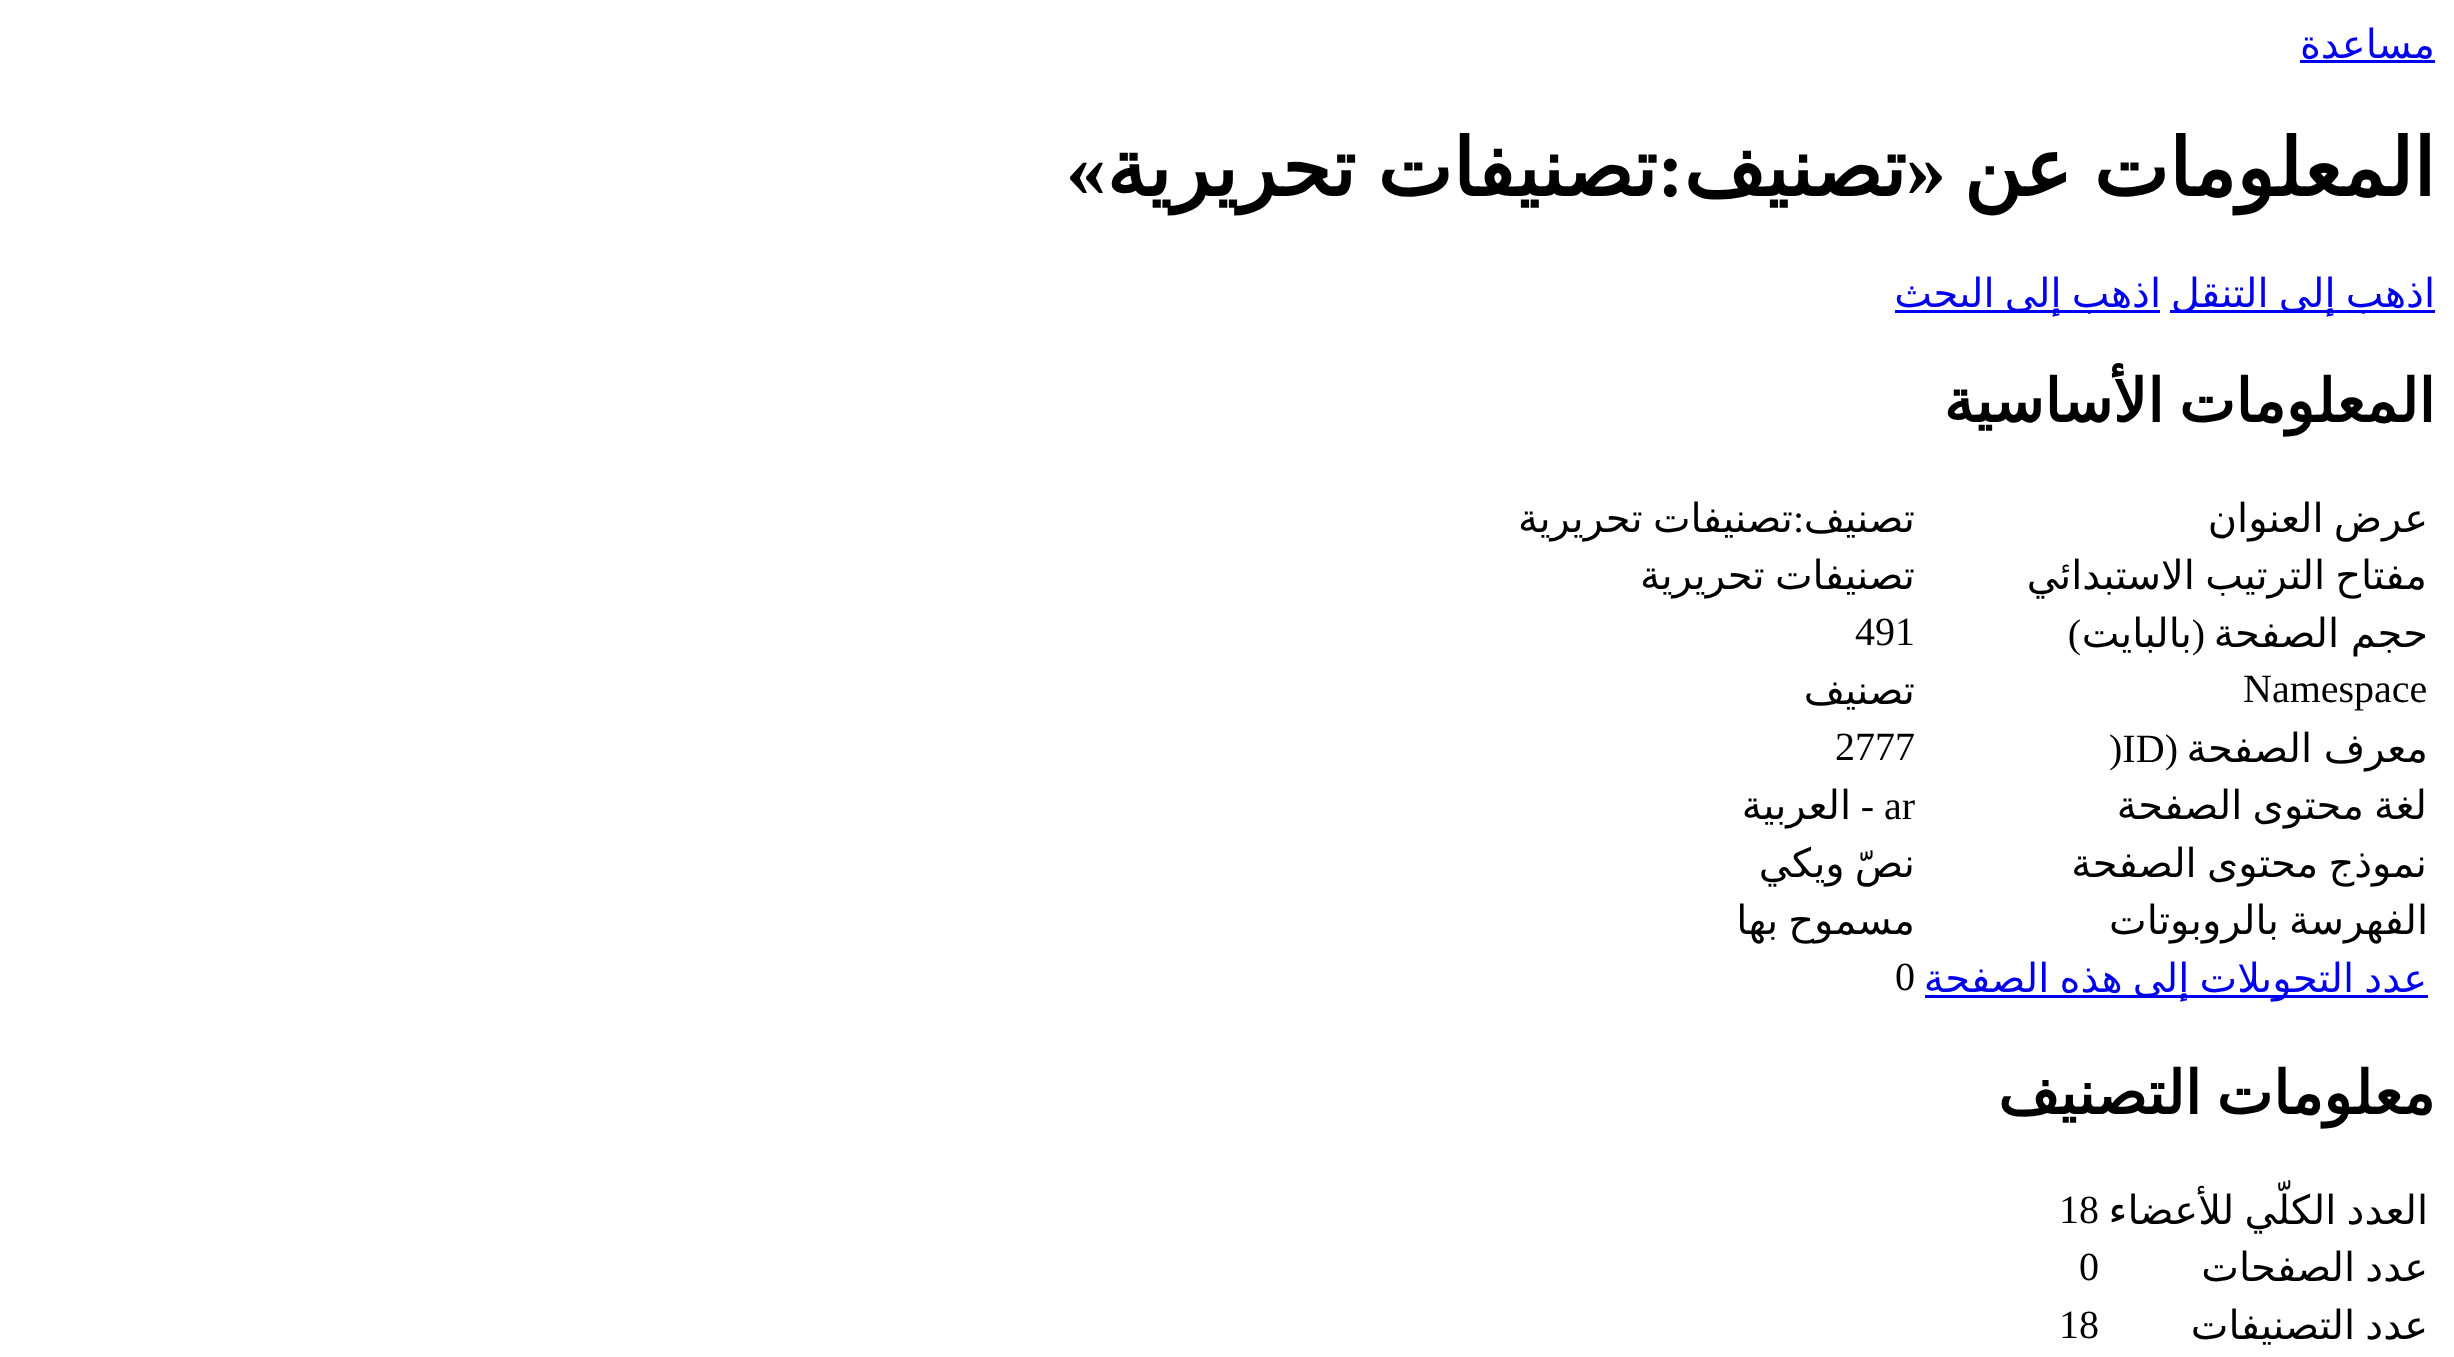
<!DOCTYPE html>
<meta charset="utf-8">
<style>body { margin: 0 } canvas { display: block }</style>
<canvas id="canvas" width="2454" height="1357"></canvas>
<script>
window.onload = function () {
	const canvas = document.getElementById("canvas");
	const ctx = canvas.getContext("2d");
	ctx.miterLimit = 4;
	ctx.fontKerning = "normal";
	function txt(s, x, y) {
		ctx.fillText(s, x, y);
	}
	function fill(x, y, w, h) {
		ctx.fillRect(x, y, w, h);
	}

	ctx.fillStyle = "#FFFFFF";
	fill(0, 0, 2454, 1357);
	ctx.fillStyle = "#0000EE";
	fill(2300, 60, 135, 3);
	fill(2170, 310, 265, 3);
	fill(1895, 310, 265, 3);
	fill(1925, 995, 503, 3);
	ctx.direction = "rtl";
	ctx.font = "40px DejaVu Sans";
	txt("مساعدة", 2435, 58);
	ctx.wordSpacing = "-4px";
	ctx.font = "bold 80px DejaVu Sans";
	ctx.fillStyle = "#000000";
	txt("المعلومات عن", 2435, 196);
	ctx.wordSpacing = "0px";
	ctx.font = "bold 80px Liberation Serif";
	txt("«", 1946, 196);
	ctx.font = "bold 80px DejaVu Sans";
	txt("تصنيف", 1906, 196);
	ctx.font = "bold 80px Liberation Serif";
	txt(":", 1684, 196);
	ctx.wordSpacing = "-4px";
	ctx.font = "bold 80px DejaVu Sans";
	txt("تصنيفات تحريرية", 1657, 196);
	ctx.wordSpacing = "0px";
	ctx.font = "bold 80px Liberation Serif";
	txt("»", 1106, 196);
	ctx.wordSpacing = "-2.5px";
	ctx.font = "40px DejaVu Sans";
	ctx.fillStyle = "#0000EE";
	txt("اذهب إلى التنقل", 2435, 307);
	txt("اذهب إلى البحث", 2161, 307);
	ctx.wordSpacing = "-4px";
	ctx.font = "bold 60px DejaVu Sans";
	ctx.fillStyle = "#000000";
	txt("المعلومات الأساسية", 2435, 422);
	ctx.wordSpacing = "-2.5px";
	ctx.font = "40px DejaVu Sans";
	txt("عرض العنوان", 2428, 532);
	ctx.wordSpacing = "0px";
	txt("تصنيف", 1915, 532);
	ctx.font = "40px Liberation Serif";
	txt(":", 1804, 532);
	ctx.wordSpacing = "-2.5px";
	ctx.font = "40px DejaVu Sans";
	txt("تصنيفات تحريرية", 1793, 532);
	txt("مفتاح الترتيب الاستبدائي", 2427, 589);
	txt("تصنيفات تحريرية", 1915, 589);
	ctx.wordSpacing = "-1px";
	txt("حجم الصفحة", 2428, 647);
	ctx.wordSpacing = "0px";
	ctx.font = "40px Liberation Serif";
	txt("(", 2205, 647);
	ctx.font = "40px DejaVu Sans";
	txt("بالبايت", 2192, 647);
	ctx.font = "40px Liberation Serif";
	txt(")", 2081, 647);
	ctx.direction = "ltr";
	txt("491", 1855, 645);
	txt("Namespace", 2243, 702);
	ctx.direction = "rtl";
	ctx.font = "40px DejaVu Sans";
	txt("تصنيف", 1915, 704);
	ctx.wordSpacing = "-1px";
	txt("معرف الصفحة", 2428, 762);
	ctx.wordSpacing = "0px";
	ctx.font = "40px Liberation Serif";
	txt("(", 2178, 762);
	ctx.direction = "ltr";
	txt(")ID", 2109, 762);
	txt("2777", 1835, 760);
	ctx.wordSpacing = "-2.5px";
	ctx.direction = "rtl";
	ctx.font = "40px DejaVu Sans";
	txt("لغة محتوى الصفحة", 2427, 819);
	ctx.wordSpacing = "0px";
	ctx.direction = "ltr";
	ctx.font = "40px Liberation Serif";
	txt("ar", 1884, 819);
	ctx.direction = "rtl";
	txt("-", 1874, 819);
	ctx.font = "40px DejaVu Sans";
	txt("العربية", 1851, 819);
	ctx.wordSpacing = "-2.5px";
	txt("نموذج محتوى الصفحة", 2427, 877);
	txt("نصّ ويكي", 1915, 877);
	txt("الفهرسة بالروبوتات", 2428, 934);
	txt("مسموح بها", 1915, 934);
	ctx.fillStyle = "#0000EE";
	txt("عدد التحويلات إلى هذه الصفحة", 2427, 992);
	ctx.wordSpacing = "0px";
	ctx.direction = "ltr";
	ctx.font = "40px Liberation Serif";
	ctx.fillStyle = "#000000";
	txt("0", 1895, 990);
	ctx.wordSpacing = "-4px";
	ctx.direction = "rtl";
	ctx.font = "bold 60px DejaVu Sans";
	txt("معلومات التصنيف", 2435, 1114);
	ctx.wordSpacing = "-2.5px";
	ctx.font = "40px DejaVu Sans";
	txt("العدد الكلّي للأعضاء", 2428, 1224);
	ctx.wordSpacing = "0px";
	ctx.direction = "ltr";
	ctx.font = "40px Liberation Serif";
	txt("18", 2059, 1223);
	ctx.wordSpacing = "-2.5px";
	ctx.direction = "rtl";
	ctx.font = "40px DejaVu Sans";
	txt("عدد الصفحات", 2428, 1281);
	ctx.wordSpacing = "0px";
	ctx.direction = "ltr";
	ctx.font = "40px Liberation Serif";
	txt("0", 2079, 1280);
	ctx.wordSpacing = "-2.5px";
	ctx.direction = "rtl";
	ctx.font = "40px DejaVu Sans";
	txt("عدد التصنيفات", 2428, 1339);
	ctx.wordSpacing = "0px";
	ctx.direction = "ltr";
	ctx.font = "40px Liberation Serif";
	txt("18", 2059, 1338);
};
</script>
